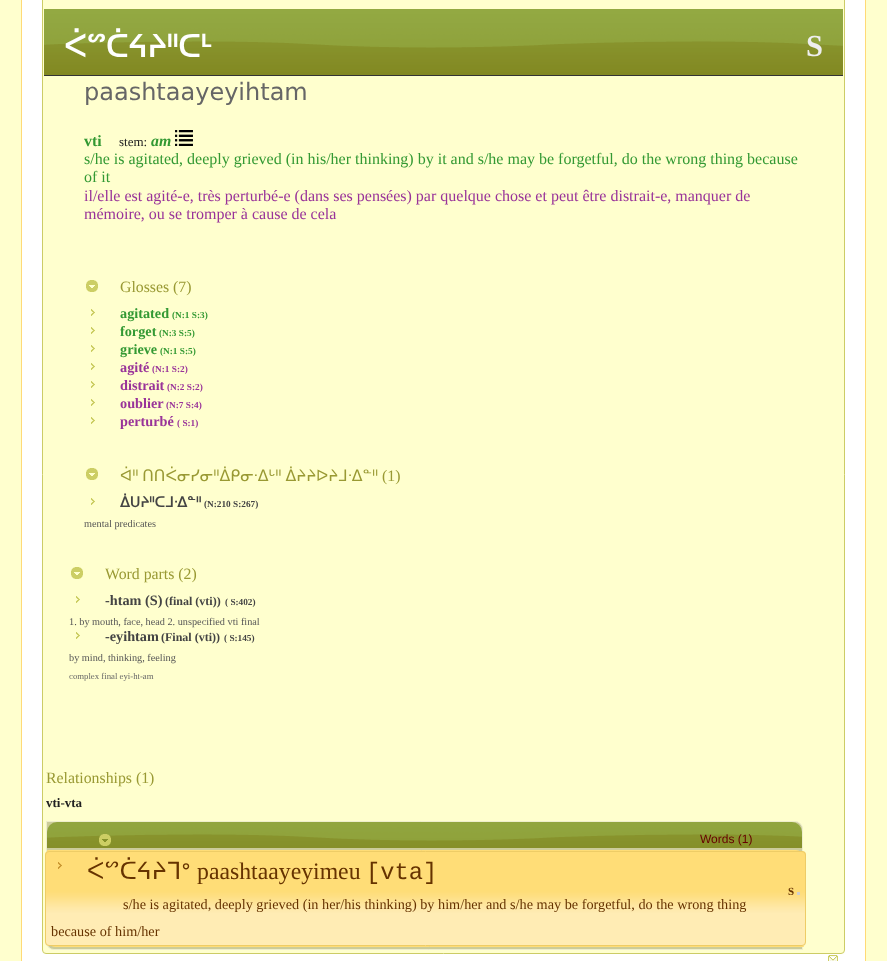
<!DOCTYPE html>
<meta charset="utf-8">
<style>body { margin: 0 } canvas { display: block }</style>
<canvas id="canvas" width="887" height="961"></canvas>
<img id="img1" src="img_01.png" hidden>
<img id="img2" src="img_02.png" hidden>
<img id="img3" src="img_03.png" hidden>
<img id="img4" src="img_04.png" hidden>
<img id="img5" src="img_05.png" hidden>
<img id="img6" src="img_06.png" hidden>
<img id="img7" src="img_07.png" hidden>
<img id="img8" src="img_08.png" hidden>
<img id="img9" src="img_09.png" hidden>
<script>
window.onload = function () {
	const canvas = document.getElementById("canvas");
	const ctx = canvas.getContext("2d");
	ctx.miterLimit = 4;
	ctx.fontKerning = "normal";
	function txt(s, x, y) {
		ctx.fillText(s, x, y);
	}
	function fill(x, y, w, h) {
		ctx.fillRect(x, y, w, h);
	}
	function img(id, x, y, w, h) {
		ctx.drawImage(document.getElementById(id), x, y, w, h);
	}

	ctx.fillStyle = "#FFFFCE";
	fill(0, 0, 887, 961);
	ctx.strokeStyle = "#FFDA77";
	ctx.strokeRect(21.5, -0.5, 844, 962);
	ctx.fillStyle = "#FFFFFF";
	fill(22, 0, 843, 961);
	ctx.fillStyle = "#FFFFCE";
	ctx.beginPath();
	ctx.roundRect(42.5, -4.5, 802, 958, 3.5);
	ctx.fill();
	ctx.strokeStyle = "#CCCC66";
	ctx.stroke();
	img("img1", 44, 9, 799, 66);
	ctx.fillStyle = "#333333";
	fill(44, 75, 799, 1);
	img("img2", 175, 130, 18, 16);
	img("img3", 86, 280, 12, 12);
	img("img4", 91, 309, 4, 7);
	img("img4", 91, 327, 4, 7);
	img("img4", 91, 345, 4, 7);
	img("img4", 91, 363, 4, 7);
	img("img4", 91, 381, 4, 7);
	img("img4", 91, 399, 4, 7);
	img("img4", 91, 417, 4, 7);
	img("img3", 86, 468, 12, 12);
	img("img4", 91, 498, 4, 7);
	img("img3", 71, 567, 12, 12);
	img("img4", 76, 596, 4, 7);
	img("img4", 76, 632, 4, 7);
	ctx.fillStyle = "#CCCC99";
	ctx.beginPath();
	ctx.roundRect(46.5, 821.5, 756, 128, [0, 7.5, 0, 7.5]);
	ctx.fill();
	ctx.strokeStyle = "#EEEECC";
	ctx.stroke();
	img("img5", 47, 822, 755, 26);
	img("img6", 99, 834, 12, 12);
	ctx.beginPath();
	ctx.roundRect(47.5, 850.5, 756, 96, [0, 7.5, 0, 7.5]);
	ctx.strokeStyle = "#FFDD77";
	ctx.stroke();
	img("img7", 45, 851, 761, 95);
	ctx.beginPath();
	ctx.roundRect(45.5, 851.5, 760, 94, 3.5);
	ctx.strokeStyle = "#EECC66";
	ctx.stroke();
	img("img8", 58, 862, 4, 7);
	ctx.fillStyle = "#CFCFCF";
	fill(797, 892, 3, 3);
	img("img9", 828, 955, 10, 6);
	ctx.font = "bold 30.5px DejaVu Sans";
	ctx.fillStyle = "#FFFFFF";
	txt("ᐹᔥᑖᔦᔨᐦᑕᒻ", 64, 57);
	ctx.font = "bold 30.5px Liberation Serif";
	ctx.fillStyle = "#EEEEEE";
	txt("S", 806, 56);
	ctx.font = "24px DejaVu Sans";
	ctx.fillStyle = "#666666";
	txt("paashtaayeyihtam", 84, 100);
	ctx.font = "bold 15.8px Liberation Serif";
	ctx.fillStyle = "#339933";
	txt("vti", 84, 146);
	ctx.font = "13px Liberation Serif";
	ctx.fillStyle = "#222222";
	txt("stem:", 119, 146);
	ctx.font = "italic bold 15.8px Liberation Serif";
	ctx.fillStyle = "#339933";
	txt("am", 151, 146);
	ctx.font = "16px Liberation Serif";
	txt("s/he is agitated, deeply grieved (in his/her thinking) by it and s/he may be forgetful, do the wrong thing because", 84, 164);
	txt("of it", 84, 182);
	ctx.fillStyle = "#993399";
	txt("il/elle est agité-e, très perturbé-e (dans ses pensées) par quelque chose et peut être distrait-e, manquer de", 84, 201);
	txt("mémoire, ou se tromper à cause de cela", 84, 219);
	ctx.font = "15.8px Liberation Serif";
	ctx.fillStyle = "#999933";
	txt("Glosses (7)", 120, 292);
	ctx.font = "bold 14.25px Liberation Serif";
	ctx.fillStyle = "#339933";
	txt("agitated", 120, 318);
	ctx.font = "bold 9.25px Liberation Serif";
	txt("(N:1 S:3)", 172, 318);
	ctx.font = "bold 14.25px Liberation Serif";
	txt("forget", 120, 336);
	ctx.font = "bold 9.25px Liberation Serif";
	txt("(N:3 S:5)", 159, 336);
	ctx.font = "bold 14.25px Liberation Serif";
	txt("grieve", 120, 354);
	ctx.font = "bold 9.25px Liberation Serif";
	txt("(N:1 S:5)", 160, 354);
	ctx.font = "bold 14.25px Liberation Serif";
	ctx.fillStyle = "#993399";
	txt("agité", 120, 372);
	ctx.font = "bold 9.25px Liberation Serif";
	txt("(N:1 S:2)", 152, 372);
	ctx.font = "bold 14.25px Liberation Serif";
	txt("distrait", 120, 390);
	ctx.font = "bold 9.25px Liberation Serif";
	txt("(N:2 S:2)", 167, 390);
	ctx.font = "bold 14.25px Liberation Serif";
	txt("oublier", 120, 408);
	ctx.font = "bold 9.25px Liberation Serif";
	txt("(N:7 S:4)", 166, 408);
	ctx.font = "bold 14.25px Liberation Serif";
	txt("perturbé", 120, 426);
	ctx.font = "bold 9.25px Liberation Serif";
	txt("( S:1)", 177, 426);
	ctx.wordSpacing = "-1px";
	ctx.font = "15.8px DejaVu Sans";
	ctx.fillStyle = "#999933";
	txt("ᐋᐦ ᑎᑎᐹᓂᓯᓂᐦᐄᑭᓂᐧᐃᒡᐦ ᐄᔨᔨᐅᔨᒧᐧᐃᓐᐦ", 120, 481);
	ctx.wordSpacing = "0px";
	ctx.font = "15.8px Liberation Serif";
	txt("(1)", 382, 481);
	ctx.font = "bold 14.25px DejaVu Sans";
	ctx.fillStyle = "#444444";
	txt("ᐄᑌᔨᐦᑕᒧᐧᐃᓐᐦ", 120, 507);
	ctx.font = "bold 9.25px Liberation Serif";
	txt("(N:210 S:267)", 204, 507);
	ctx.font = "10.25px Liberation Serif";
	ctx.fillStyle = "#555555";
	txt("mental predicates", 84, 527);
	ctx.font = "15.8px Liberation Serif";
	ctx.fillStyle = "#999933";
	txt("Word parts (2)", 105, 579);
	ctx.font = "bold 14.25px Liberation Serif";
	ctx.fillStyle = "#444444";
	txt("-htam (S)", 105, 605);
	ctx.font = "bold 12px Liberation Serif";
	txt("(final (vti))", 165, 605);
	ctx.font = "bold 9.25px Liberation Serif";
	txt("( S:402)", 225, 605);
	ctx.font = "10.25px Liberation Serif";
	ctx.fillStyle = "#555555";
	txt("1. by mouth, face, head 2. unspecified vti final", 69, 625);
	ctx.font = "bold 14.25px Liberation Serif";
	ctx.fillStyle = "#444444";
	txt("-eyihtam", 105, 641);
	ctx.font = "bold 12px Liberation Serif";
	txt("(Final (vti))", 161, 641);
	ctx.font = "bold 9.25px Liberation Serif";
	txt("( S:145)", 224, 641);
	ctx.font = "10.25px Liberation Serif";
	ctx.fillStyle = "#555555";
	txt("by mind, thinking, feeling", 69, 661);
	ctx.font = "8.75px Liberation Serif";
	ctx.fillStyle = "#666666";
	txt("complex final eyi-ht-am", 69, 679);
	ctx.font = "15.8px Liberation Serif";
	ctx.fillStyle = "#999933";
	txt("Relationships (1)", 46, 783);
	ctx.font = "bold 13px Liberation Serif";
	ctx.fillStyle = "#222222";
	txt("vti-vta", 46, 807);
	ctx.font = "12px Liberation Sans";
	ctx.fillStyle = "#660000";
	txt("Words (1)", 700, 843);
	ctx.font = "23.75px DejaVu Sans";
	ctx.fillStyle = "#663300";
	txt("ᐹᔥᑖᔦᔨᒣᐤ", 87, 879);
	ctx.font = "23.75px Liberation Serif";
	txt("paashtaayeyimeu", 197, 879);
	ctx.font = "23.75px Liberation Mono";
	txt("[vta]", 366, 879);
	ctx.font = "bold 11px Liberation Serif";
	txt("S", 788, 895);
	ctx.font = "14.25px Liberation Serif";
	txt("s/he is agitated, deeply grieved (in her/his thinking) by him/her and s/he may be forgetful, do the wrong thing", 123, 909);
	txt("because of him/her", 51, 936);
};
</script>
